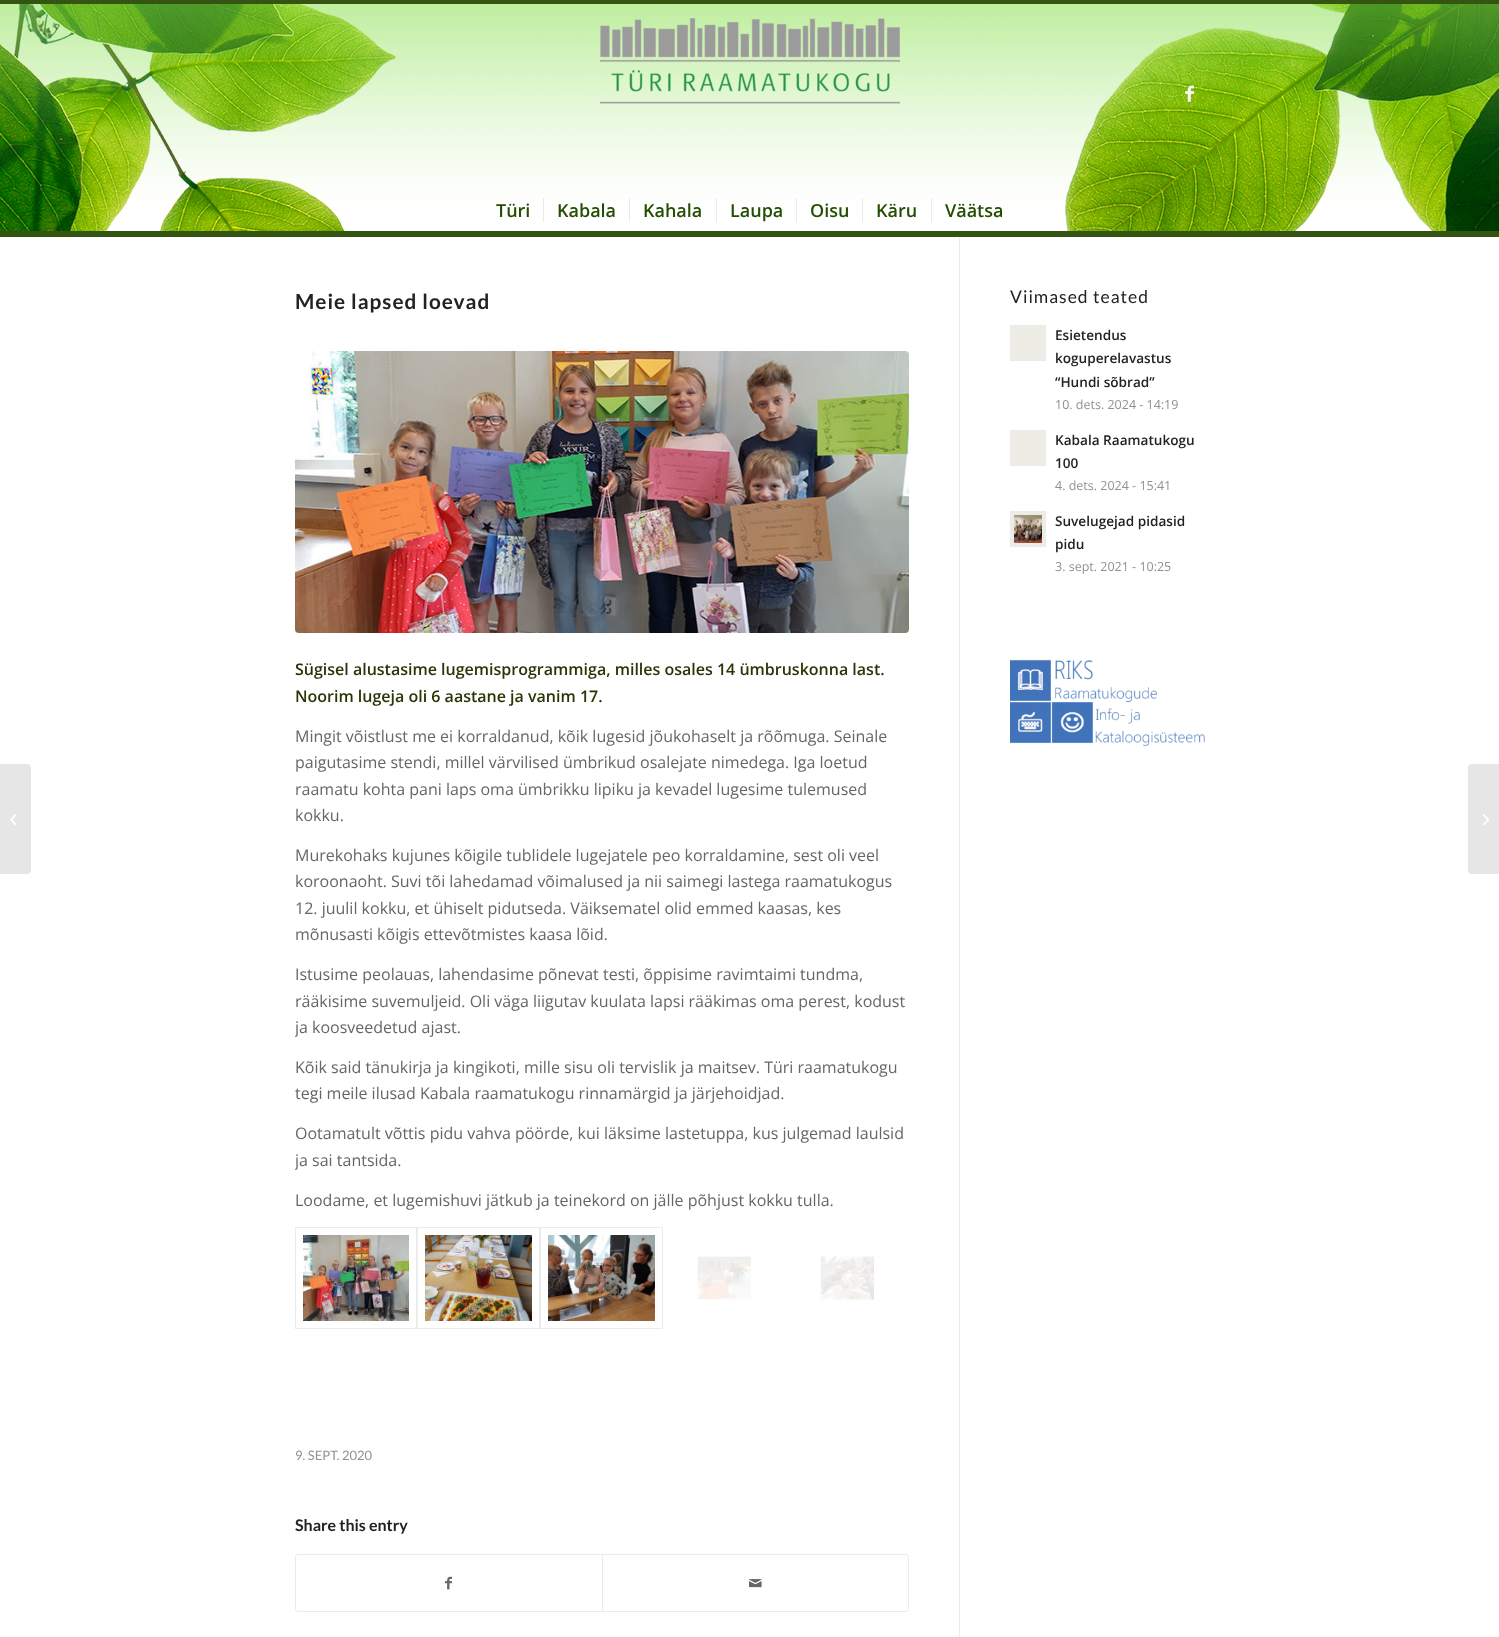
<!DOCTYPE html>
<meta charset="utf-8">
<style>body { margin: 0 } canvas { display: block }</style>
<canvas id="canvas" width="1499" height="1637"></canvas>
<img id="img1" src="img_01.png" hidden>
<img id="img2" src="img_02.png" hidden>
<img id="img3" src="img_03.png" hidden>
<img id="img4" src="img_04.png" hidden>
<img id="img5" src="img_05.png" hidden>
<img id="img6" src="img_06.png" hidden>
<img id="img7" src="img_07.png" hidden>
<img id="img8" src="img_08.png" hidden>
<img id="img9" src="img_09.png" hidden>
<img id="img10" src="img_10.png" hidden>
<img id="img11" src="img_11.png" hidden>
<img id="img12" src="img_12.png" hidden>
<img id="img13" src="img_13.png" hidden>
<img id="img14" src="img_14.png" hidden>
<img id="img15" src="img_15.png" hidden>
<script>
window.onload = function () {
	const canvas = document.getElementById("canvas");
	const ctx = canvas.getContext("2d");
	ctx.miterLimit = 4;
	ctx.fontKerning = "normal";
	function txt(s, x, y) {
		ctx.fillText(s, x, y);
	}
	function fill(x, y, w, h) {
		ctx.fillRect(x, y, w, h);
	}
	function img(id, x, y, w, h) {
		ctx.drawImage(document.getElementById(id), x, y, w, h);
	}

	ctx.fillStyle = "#345411";
	fill(0, 0, 1499, 1637);
	img("img1", 0, 4, 1499, 227);
	img("img2", 600, 18, 300, 86);
	img("img3", 1185, 85, 9, 17);
	ctx.fillStyle = "#EBEBEB";
	fill(543, 198, 1, 24);
	fill(629, 198, 1, 24);
	fill(716, 198, 1, 24);
	fill(796, 198, 1, 24);
	fill(862, 198, 1, 24);
	fill(931, 198, 1, 24);
	ctx.fillStyle = "#FFFFFF";
	fill(0, 237, 1499, 1400);
	ctx.fillStyle = "#E6E6E6";
	ctx.beginPath();
	ctx.roundRect(0, 764, 31, 110, [0, 4, 4, 0]);
	ctx.fill();
	img("img4", 10, 814, 7, 11);
	ctx.fillStyle = "#EBEBEB";
	fill(959, 237, 1, 1400);
	img("img5", 295, 351, 614, 282);
	ctx.strokeStyle = "#EBEBEB";
	ctx.strokeRect(295.5, 1227.5, 121, 101);
	img("img6", 303, 1235, 106, 86);
	ctx.strokeRect(417.5, 1227.5, 122, 101);
	img("img7", 425, 1235, 107, 86);
	ctx.strokeRect(540.5, 1227.5, 122, 101);
	img("img8", 548, 1235, 107, 86);
	img("img9", 697, 1256, 54, 44);
	img("img10", 820, 1256, 54, 44);
	ctx.beginPath();
	ctx.roundRect(295.5, 1554.5, 613, 57, 2.5);
	ctx.stroke();
	img("img11", 445, 1576, 7, 14);
	fill(602, 1555, 1, 56);
	img("img12", 749, 1579, 13, 9);
	ctx.fillStyle = "#EDEDE6";
	ctx.beginPath();
	ctx.rect(1010.5, 325.5, 35, 35);
	ctx.fill();
	ctx.stroke();
	ctx.beginPath();
	ctx.rect(1010.5, 430.5, 35, 35);
	ctx.fill();
	ctx.stroke();
	ctx.beginPath();
	ctx.rect(1010.5, 511.5, 35, 35);
	ctx.fill();
	ctx.stroke();
	img("img13", 1014, 515, 28, 28);
	img("img14", 1010, 659, 195, 87);
	ctx.fillStyle = "#E6E6E6";
	ctx.beginPath();
	ctx.roundRect(1468, 764, 31, 110, [4, 0, 0, 4]);
	ctx.fill();
	img("img15", 1483, 814, 7, 11);
	ctx.font = "600 18px Open Sans";
	ctx.fillStyle = "#234D00";
	txt("Türi", 496, 217);
	txt("Kabala", 557, 217);
	txt("Kahala", 643, 217);
	txt("Laupa", 730, 217);
	txt("Oisu", 810, 217);
	txt("Käru", 876, 217);
	txt("Väätsa", 945, 217);
	ctx.letterSpacing = "1px";
	ctx.font = "bold 20.75px Lato";
	ctx.fillStyle = "#222222";
	txt("Meie lapsed loevad", 295, 309);
	ctx.letterSpacing = "0px";
	ctx.font = "600 16px Open Sans";
	ctx.fillStyle = "#283606";
	txt("Sügisel alustasime lugemisprogrammiga, milles osales 14 ümbruskonna last.", 295, 675);
	txt("Noorim lugeja oli 6 aastane ja vanim 17.", 295, 702);
	ctx.font = "16px Open Sans";
	ctx.fillStyle = "#696469";
	txt("Mingit võistlust me ei korraldanud, kõik lugesid jõukohaselt ja rõõmuga. Seinale", 295, 742);
	txt("paigutasime stendi, millel värvilised ümbrikud osalejate nimedega. Iga loetud", 295, 768);
	txt("raamatu kohta pani laps oma ümbrikku lipiku ja kevadel lugesime tulemused", 295, 795);
	txt("kokku.", 295, 821);
	txt("Murekohaks kujunes kõigile tublidele lugejatele peo korraldamine, sest oli veel", 295, 861);
	txt("koroonaoht. Suvi tõi lahedamad võimalused ja nii saimegi lastega raamatukogus", 295, 887);
	txt("12. juulil kokku, et ühiselt pidutseda. Väiksematel olid emmed kaasas, kes", 295, 914);
	txt("mõnusasti kõigis ettevõtmistes kaasa lõid.", 295, 940);
	txt("Istusime peolauas, lahendasime põnevat testi, õppisime ravimtaimi tundma,", 295, 980);
	txt("rääkisime suvemuljeid. Oli väga liigutav kuulata lapsi rääkimas oma perest, kodust", 295, 1007);
	ctx.save();
	ctx.beginPath();
	ctx.rect(295, 287, 664, 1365);
	ctx.clip();
	txt("ja koosveedetud ajast.", 295, 1033);
	ctx.restore();
	txt("Kõik said tänukirja ja kingikoti, mille sisu oli tervislik ja maitsev. Türi raamatukogu", 295, 1073);
	txt("tegi meile ilusad Kabala raamatukogu rinnamärgid ja järjehoidjad.", 295, 1099);
	txt("Ootamatult võttis pidu vahva pöörde, kui läksime lastetuppa, kus julgemad laulsid", 295, 1139);
	ctx.save();
	ctx.beginPath();
	ctx.rect(295, 287, 664, 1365);
	ctx.clip();
	txt("ja sai tantsida.", 295, 1166);
	ctx.restore();
	txt("Loodame, et lugemishuvi jätkub ja teinekord on jälle põhjust kokku tulla.", 295, 1206);
	ctx.font = "13px Lato";
	ctx.fillStyle = "#919191";
	txt("9. SEPT. 2020", 295, 1460);
	ctx.font = "bold 16px Lato";
	ctx.fillStyle = "#222222";
	txt("Share this entry", 295, 1531);
	ctx.letterSpacing = "1px";
	ctx.font = "17.5px Lato";
	txt("Viimased teated", 1010, 303);
	ctx.letterSpacing = "0px";
	ctx.font = "600 13.6px Open Sans";
	txt("Esietendus", 1055, 340);
	txt("koguperelavastus", 1055, 363);
	txt("“Hundi sõbrad”", 1055, 387);
	ctx.font = "12.5px Open Sans";
	ctx.fillStyle = "#919191";
	txt("10. dets. 2024 - 14:19", 1055, 409);
	ctx.font = "600 13.6px Open Sans";
	ctx.fillStyle = "#222222";
	txt("Kabala Raamatukogu", 1055, 445);
	txt("100", 1055, 468);
	ctx.font = "12.5px Open Sans";
	ctx.fillStyle = "#919191";
	txt("4. dets. 2024 - 15:41", 1055, 490);
	ctx.font = "600 13.6px Open Sans";
	ctx.fillStyle = "#222222";
	txt("Suvelugejad pidasid", 1055, 526);
	txt("pidu", 1055, 549);
	ctx.font = "12.5px Open Sans";
	ctx.fillStyle = "#919191";
	txt("3. sept. 2021 - 10:25", 1055, 571);
};
</script>
